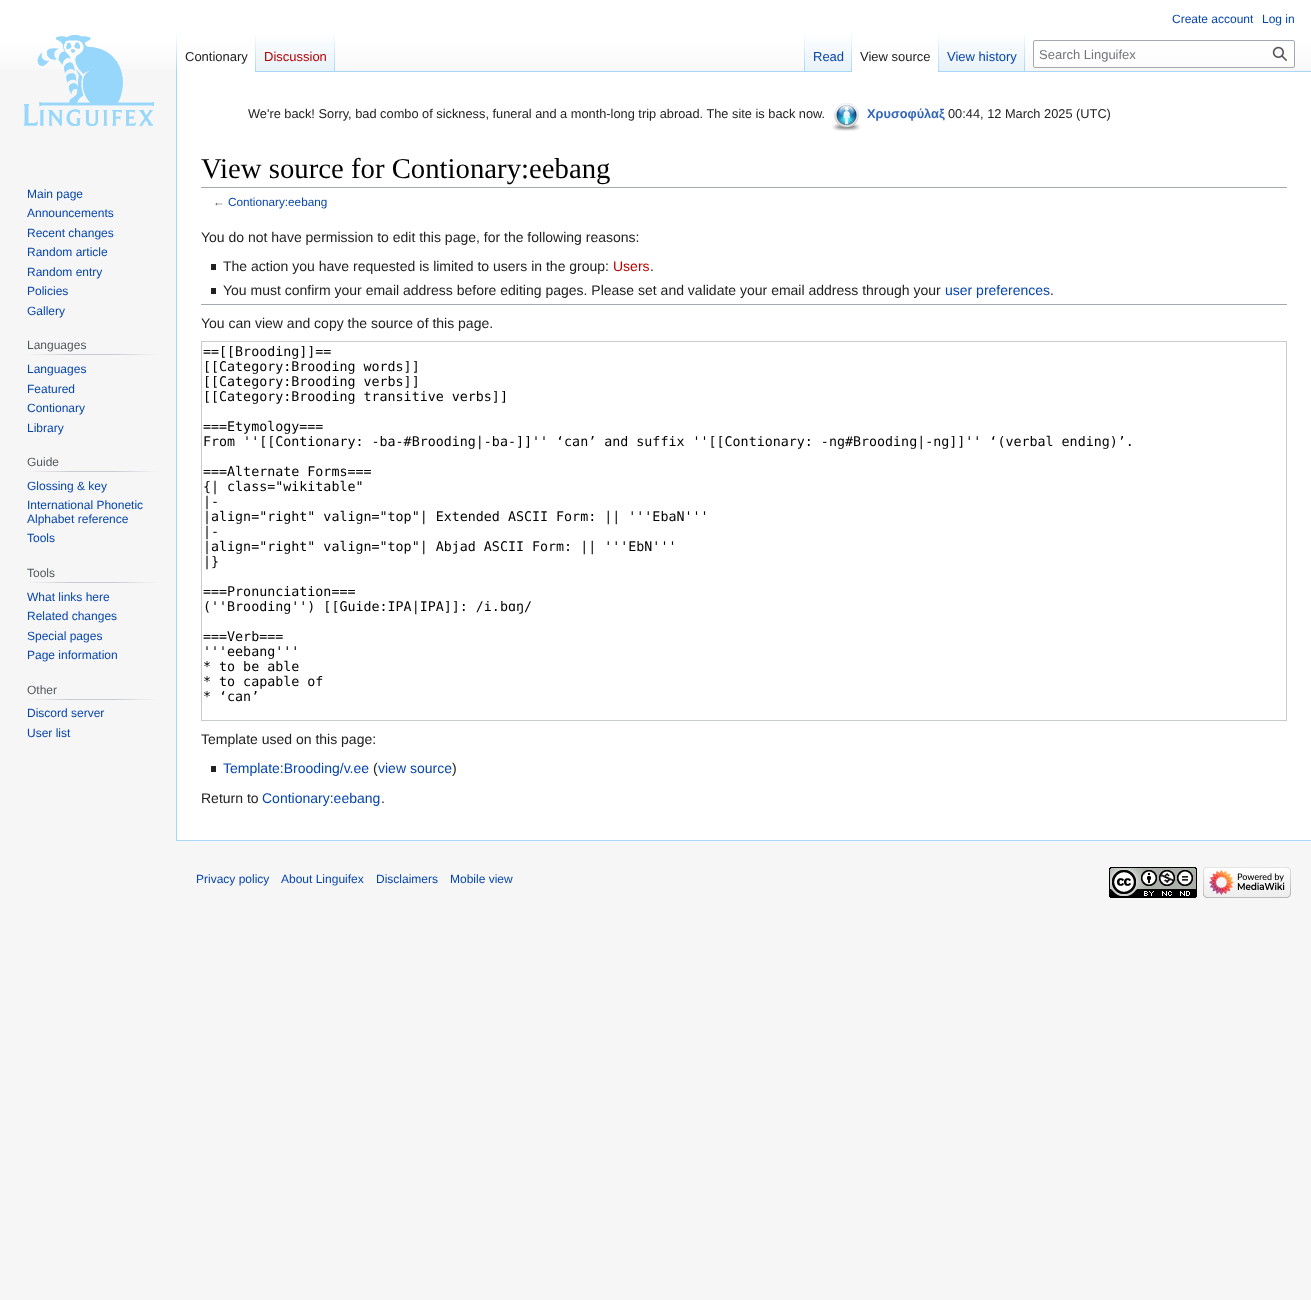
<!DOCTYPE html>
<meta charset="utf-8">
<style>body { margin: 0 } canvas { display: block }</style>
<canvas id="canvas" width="1311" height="1300"></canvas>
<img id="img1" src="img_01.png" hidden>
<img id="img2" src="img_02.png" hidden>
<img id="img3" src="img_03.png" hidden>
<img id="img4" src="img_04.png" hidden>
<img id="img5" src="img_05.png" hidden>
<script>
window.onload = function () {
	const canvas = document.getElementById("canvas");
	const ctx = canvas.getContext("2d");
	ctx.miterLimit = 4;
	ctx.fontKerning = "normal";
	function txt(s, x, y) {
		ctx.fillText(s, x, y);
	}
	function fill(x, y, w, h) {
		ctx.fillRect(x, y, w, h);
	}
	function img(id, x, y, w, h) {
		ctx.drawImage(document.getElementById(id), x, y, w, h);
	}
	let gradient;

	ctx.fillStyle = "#F6F6F6";
	fill(0, 0, 1311, 1300);
	gradient = ctx.createLinearGradient(656, 0, 656, 80);
	gradient.addColorStop(0.5, "#FFFFFF");
	gradient.addColorStop(1, "#F6F6F6");
	ctx.fillStyle = gradient;
	fill(0, 0, 1311, 69);
	ctx.fillStyle = "#A7D7F9";
	fill(176, 840, 1135, 1);
	fill(176, 71, 1, 770);
	gradient = ctx.createLinearGradient(177, 32, 177, 72);
	gradient.addColorStop(0, "rgba(167, 215, 249, 0)");
	gradient.addColorStop(1, "#A7D7F9");
	ctx.fillStyle = gradient;
	fill(176, 32, 1, 40);
	ctx.fillStyle = "#FFFFFF";
	fill(177, 51, 78, 21);
	gradient = ctx.createLinearGradient(256, 32, 256, 72);
	gradient.addColorStop(0, "#FFFFFF");
	gradient.addColorStop(1, "#A7D7F9");
	ctx.fillStyle = gradient;
	fill(255, 32, 1, 40);
	gradient = ctx.createLinearGradient(296, 72, 296, 32);
	gradient.addColorStop(0, "#77C1F6");
	gradient.addColorStop(0.03, "#E8F2F8");
	gradient.addColorStop(1, "#FFFFFF");
	ctx.fillStyle = gradient;
	fill(256, 36, 79, 36);
	gradient = ctx.createLinearGradient(335, 32, 335, 72);
	gradient.addColorStop(0, "rgba(167, 215, 249, 0)");
	gradient.addColorStop(1, "#A7D7F9");
	ctx.fillStyle = gradient;
	fill(334, 32, 1, 40);
	ctx.fillStyle = "#A7D7F9";
	fill(335, 71, 976, 1);
	gradient = ctx.createLinearGradient(805, 32, 805, 72);
	gradient.addColorStop(0, "rgba(167, 215, 249, 0)");
	gradient.addColorStop(1, "#A7D7F9");
	ctx.fillStyle = gradient;
	fill(804, 32, 1, 40);
	gradient = ctx.createLinearGradient(829, 72, 829, 32);
	gradient.addColorStop(0, "#77C1F6");
	gradient.addColorStop(0.03, "#E8F2F8");
	gradient.addColorStop(1, "#FFFFFF");
	ctx.fillStyle = gradient;
	fill(805, 36, 47, 35);
	gradient = ctx.createLinearGradient(852, 32, 852, 72);
	gradient.addColorStop(0, "rgba(167, 215, 249, 0)");
	gradient.addColorStop(1, "#A7D7F9");
	ctx.fillStyle = gradient;
	fill(851, 32, 1, 40);
	ctx.fillStyle = "#FFFFFF";
	fill(852, 51, 86, 21);
	gradient = ctx.createLinearGradient(939, 32, 939, 72);
	gradient.addColorStop(0, "#FFFFFF");
	gradient.addColorStop(1, "#A7D7F9");
	ctx.fillStyle = gradient;
	fill(938, 32, 1, 40);
	gradient = ctx.createLinearGradient(982, 72, 982, 32);
	gradient.addColorStop(0, "#77C1F6");
	gradient.addColorStop(0.03, "#E8F2F8");
	gradient.addColorStop(1, "#FFFFFF");
	ctx.fillStyle = gradient;
	fill(939, 36, 86, 35);
	gradient = ctx.createLinearGradient(1025, 32, 1025, 72);
	gradient.addColorStop(0, "rgba(167, 215, 249, 0)");
	gradient.addColorStop(1, "#A7D7F9");
	ctx.fillStyle = gradient;
	fill(1024, 32, 1, 40);
	ctx.fillStyle = "rgba(255, 255, 255, 0.5)";
	ctx.beginPath();
	ctx.roundRect(1033.5, 40.5, 261, 27, 1.5);
	ctx.fill();
	ctx.strokeStyle = "#A2A9B1";
	ctx.stroke();
	img("img1", 1272, 46, 15, 15);
	img("img2", 23, 35, 131, 91);
	gradient = ctx.createLinearGradient(27, 355, 158, 355);
	gradient.addColorStop(0, "#F6F6F6");
	gradient.addColorStop(0.33, "#C8CCD1");
	gradient.addColorStop(0.66, "#C8CCD1");
	gradient.addColorStop(1, "#F6F6F6");
	ctx.fillStyle = gradient;
	fill(27, 354, 131, 1);
	gradient = ctx.createLinearGradient(27, 472, 158, 472);
	gradient.addColorStop(0, "#F6F6F6");
	gradient.addColorStop(0.33, "#C8CCD1");
	gradient.addColorStop(0.66, "#C8CCD1");
	gradient.addColorStop(1, "#F6F6F6");
	ctx.fillStyle = gradient;
	fill(27, 471, 131, 1);
	gradient = ctx.createLinearGradient(27, 583, 158, 583);
	gradient.addColorStop(0, "#F6F6F6");
	gradient.addColorStop(0.33, "#C8CCD1");
	gradient.addColorStop(0.66, "#C8CCD1");
	gradient.addColorStop(1, "#F6F6F6");
	ctx.fillStyle = gradient;
	fill(27, 582, 131, 1);
	gradient = ctx.createLinearGradient(27, 700, 158, 700);
	gradient.addColorStop(0, "#F6F6F6");
	gradient.addColorStop(0.33, "#C8CCD1");
	gradient.addColorStop(0.66, "#C8CCD1");
	gradient.addColorStop(1, "#F6F6F6");
	ctx.fillStyle = gradient;
	fill(27, 699, 131, 1);
	ctx.fillStyle = "#FFFFFF";
	fill(177, 72, 1134, 768);
	img("img3", 832, 103, 29, 28);
	ctx.fillStyle = "#A2A9B1";
	fill(201, 187, 1086, 1);
	ctx.fillStyle = "#202122";
	fill(211, 264, 5, 6);
	fill(211, 288, 5, 6);
	ctx.fillStyle = "#A2A9B1";
	fill(201, 304, 1086, 1);
	ctx.strokeStyle = "#C8CCD1";
	ctx.strokeRect(201.5, 341.5, 1085, 379);
	ctx.fillStyle = "#202122";
	fill(211, 766, 5, 6);
	img("img4", 1109, 867, 88, 31);
	img("img5", 1203, 867, 88, 31);
	ctx.font = "12px Liberation Sans";
	ctx.fillStyle = "#0645AD";
	txt("Create account", 1172, 23);
	txt("Log in", 1262, 23);
	ctx.font = "13px Liberation Sans";
	ctx.fillStyle = "#202122";
	txt("Contionary", 185, 61);
	ctx.fillStyle = "#BA0000";
	txt("Discussion", 264, 61);
	ctx.fillStyle = "#0645AD";
	txt("Read", 813, 61);
	ctx.fillStyle = "#202122";
	txt("View source", 860, 61);
	ctx.fillStyle = "#0645AD";
	txt("View history", 947, 61);
	ctx.fillStyle = "#72777D";
	txt("Search Linguifex", 1039, 59);
	ctx.font = "12px Liberation Sans";
	ctx.fillStyle = "#0645AD";
	txt("Main page", 27, 198);
	txt("Announcements", 27, 217);
	txt("Recent changes", 27, 237);
	txt("Random article", 27, 256);
	txt("Random entry", 27, 276);
	txt("Policies", 27, 295);
	txt("Gallery", 27, 315);
	ctx.fillStyle = "#54595D";
	txt("Languages", 27, 349);
	ctx.fillStyle = "#0645AD";
	txt("Languages", 27, 373);
	txt("Featured", 27, 393);
	txt("Contionary", 27, 412);
	txt("Library", 27, 432);
	ctx.fillStyle = "#54595D";
	txt("Guide", 27, 466);
	ctx.fillStyle = "#0645AD";
	txt("Glossing & key", 27, 490);
	txt("International Phonetic", 27, 509);
	txt("Alphabet reference", 27, 523);
	txt("Tools", 27, 542);
	ctx.fillStyle = "#54595D";
	txt("Tools", 27, 577);
	ctx.fillStyle = "#0645AD";
	txt("What links here", 27, 601);
	txt("Related changes", 27, 620);
	txt("Special pages", 27, 640);
	txt("Page information", 27, 659);
	ctx.fillStyle = "#54595D";
	txt("Other", 27, 694);
	ctx.fillStyle = "#0645AD";
	txt("Discord server", 27, 717);
	txt("User list", 27, 737);
	ctx.font = "12.8px Liberation Sans";
	ctx.fillStyle = "#202122";
	txt("We're back! Sorry, bad combo of sickness, funeral and a month-long trip abroad. The site is back now.", 248, 118);
	ctx.font = "bold 12.8px Liberation Sans";
	ctx.fillStyle = "#3366BB";
	txt("Χρυσοφύλαξ", 867, 118);
	ctx.font = "12.8px Liberation Sans";
	ctx.fillStyle = "#202122";
	txt("00:44, 12 March 2025 (UTC)", 948, 118);
	ctx.font = "28.75px Liberation Serif";
	ctx.fillStyle = "#000000";
	txt("View source for Contionary:eebang", 201, 178);
	ctx.font = "11.75px Liberation Sans";
	ctx.fillStyle = "#54595D";
	txt("←", 213, 206);
	ctx.fillStyle = "#0645AD";
	txt("Contionary:eebang", 228, 206);
	ctx.font = "14px Liberation Sans";
	ctx.fillStyle = "#202122";
	txt("You do not have permission to edit this page, for the following reasons:", 201, 242);
	txt("The action you have requested is limited to users in the group:", 223, 271);
	ctx.fillStyle = "#BA0000";
	txt("Users", 613, 271);
	ctx.fillStyle = "#202122";
	txt(".", 650, 271);
	txt("You must confirm your email address before editing pages. Please set and validate your email address through your", 223, 295);
	ctx.fillStyle = "#0645AD";
	txt("user preferences", 945, 295);
	ctx.fillStyle = "#202122";
	txt(".", 1050, 295);
	txt("You can view and copy the source of this page.", 201, 328);
	ctx.font = "13.33px DejaVu Sans Mono";
	ctx.fillStyle = "#000000";
	txt("==[[Brooding]]==", 203, 356);
	txt("[[Category:Brooding words]]", 203, 371);
	txt("[[Category:Brooding verbs]]", 203, 386);
	txt("[[Category:Brooding transitive verbs]]", 203, 401);
	txt("===Etymology===", 203, 431);
	txt("From ''[[Contionary: -ba-#Brooding|-ba-]]'' ‘can’ and suffix ''[[Contionary: -ng#Brooding|-ng]]'' ‘(verbal ending)’.", 203, 446);
	txt("===Alternate Forms===", 203, 476);
	txt("{| class=\"wikitable\"", 203, 491);
	txt("|-", 203, 506);
	txt("|align=\"right\" valign=\"top\"| Extended ASCII Form: || '''EbaN'''", 203, 521);
	txt("|-", 203, 536);
	txt("|align=\"right\" valign=\"top\"| Abjad ASCII Form: || '''EbN'''", 203, 551);
	txt("|}", 203, 566);
	txt("===Pronunciation===", 203, 596);
	txt("(''Brooding'') [[Guide:IPA|IPA]]: /i.bɑŋ/", 203, 611);
	txt("===Verb===", 203, 641);
	txt("'''eebang'''", 203, 656);
	txt("* to be able", 203, 671);
	txt("* to capable of", 203, 686);
	txt("* ‘can’", 203, 701);
	ctx.font = "14px Liberation Sans";
	ctx.fillStyle = "#202122";
	txt("Template used on this page:", 201, 744);
	ctx.fillStyle = "#0645AD";
	txt("Template:Brooding/v.ee", 223, 773);
	ctx.fillStyle = "#202122";
	txt("(", 373, 773);
	ctx.fillStyle = "#0645AD";
	txt("view source", 378, 773);
	ctx.fillStyle = "#202122";
	txt(")", 452, 773);
	txt("Return to", 201, 803);
	ctx.fillStyle = "#0645AD";
	txt("Contionary:eebang", 262, 803);
	ctx.fillStyle = "#202122";
	txt(".", 381, 803);
	ctx.font = "12px Liberation Sans";
	ctx.fillStyle = "#0645AD";
	txt("Privacy policy", 196, 883);
	txt("About Linguifex", 281, 883);
	txt("Disclaimers", 376, 883);
	txt("Mobile view", 450, 883);
};
</script>
